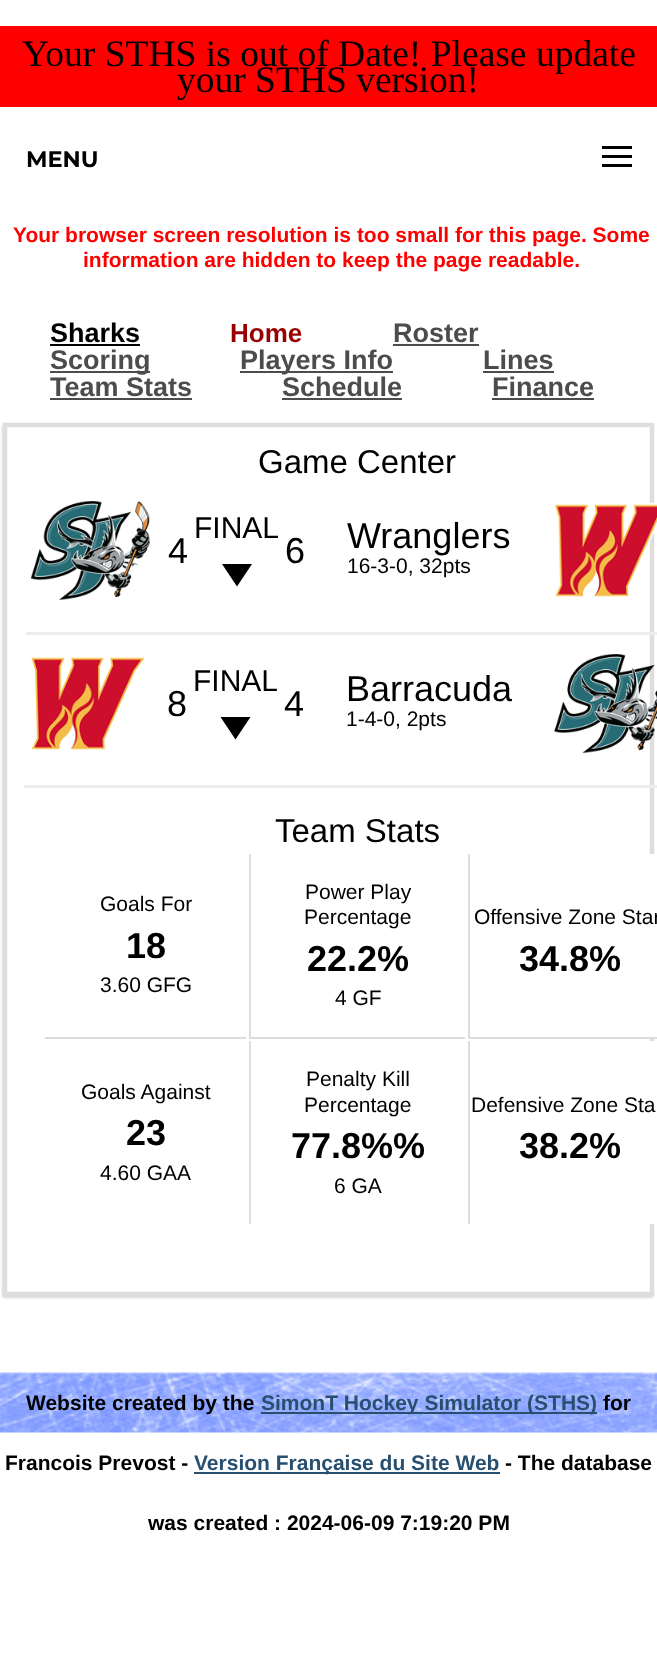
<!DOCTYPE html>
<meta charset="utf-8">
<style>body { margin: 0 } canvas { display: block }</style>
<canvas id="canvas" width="657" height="1670"></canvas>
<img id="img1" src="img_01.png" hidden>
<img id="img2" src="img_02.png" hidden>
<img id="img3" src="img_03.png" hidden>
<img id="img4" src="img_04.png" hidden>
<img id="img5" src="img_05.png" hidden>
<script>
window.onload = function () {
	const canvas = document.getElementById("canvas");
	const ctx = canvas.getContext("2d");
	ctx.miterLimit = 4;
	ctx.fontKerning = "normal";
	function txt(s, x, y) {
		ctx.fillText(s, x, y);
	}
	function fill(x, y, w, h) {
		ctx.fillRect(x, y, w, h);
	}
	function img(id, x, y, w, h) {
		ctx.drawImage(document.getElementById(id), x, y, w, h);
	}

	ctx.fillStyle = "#FFFFFF";
	fill(0, 0, 657, 1670);
	ctx.fillStyle = "#FF0000";
	fill(0, 26, 657, 81);
	ctx.fillStyle = "#000000";
	fill(602, 146, 30, 3);
	fill(602, 155, 30, 3);
	fill(602, 164, 30, 3);
	fill(50, 344, 90, 2);
	ctx.fillStyle = "#4C4C4C";
	fill(393, 344, 86, 2);
	fill(50, 371, 100, 2);
	fill(240, 371, 153, 2);
	fill(483, 371, 71, 2);
	fill(50, 398, 142, 2);
	fill(282, 398, 120, 2);
	fill(492, 398, 102, 2);
	ctx.save();
	ctx.beginPath();
	ctx.moveTo(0, 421);
	ctx.lineTo(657, 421);
	ctx.lineTo(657, 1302);
	ctx.lineTo(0, 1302);
	ctx.closePath();
	ctx.moveTo(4.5, 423);
	ctx.lineTo(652.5, 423);
	ctx.bezierCurveTo(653.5, 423, 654, 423.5, 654, 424.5);
	ctx.lineTo(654, 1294.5);
	ctx.bezierCurveTo(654, 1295.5, 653.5, 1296, 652.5, 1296);
	ctx.lineTo(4.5, 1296);
	ctx.bezierCurveTo(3.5, 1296, 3, 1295.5, 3, 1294.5);
	ctx.lineTo(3, 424.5);
	ctx.bezierCurveTo(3, 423.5, 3.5, 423, 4.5, 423);
	ctx.closePath();
	ctx.clip("evenodd");
	ctx.fillStyle = "rgba(0, 0, 0, 0.15)";
	ctx.filter = "blur(1px)";
	ctx.beginPath();
	ctx.roundRect(2, 425, 651, 873, 1.5);
	ctx.fill();
	ctx.filter = "none";
	ctx.restore();
	ctx.beginPath();
	ctx.moveTo(5, 425);
	ctx.lineTo(652, 425);
	ctx.lineTo(652, 1294);
	ctx.lineTo(5, 1294);
	ctx.closePath();
	ctx.strokeStyle = "#DEDEDE";
	ctx.lineWidth = 4.5;
	ctx.stroke();
	ctx.fillStyle = "#ECECEC";
	fill(26, 632, 631, 3);
	img("img1", 30, 501, 120, 100);
	ctx.fillStyle = "#000000";
	ctx.beginPath();
	ctx.moveTo(222, 564);
	ctx.lineTo(252, 564);
	ctx.lineTo(237, 586.5);
	ctx.closePath();
	ctx.fill();
	img("img2", 554, 502, 103, 95);
	ctx.fillStyle = "#ECECEC";
	fill(24, 785, 633, 3);
	img("img3", 31, 657, 114, 93);
	ctx.fillStyle = "#000000";
	ctx.beginPath();
	ctx.moveTo(220.5, 717);
	ctx.lineTo(250.5, 717);
	ctx.lineTo(235.5, 739.5);
	ctx.closePath();
	ctx.fill();
	img("img4", 554, 654, 103, 100);
	ctx.fillStyle = "#DDDDDD";
	fill(45, 1037, 201, 2);
	fill(249, 1037, 216, 2);
	fill(249, 854, 2, 184);
	ctx.fillStyle = "#FFFFFF";
	fill(649, 854, 6, 183);
	ctx.fillStyle = "#DDDDDD";
	fill(468, 1037, 189, 2);
	fill(468, 854, 2, 184);
	fill(249, 1041, 2, 183);
	ctx.fillStyle = "#FFFFFF";
	fill(649, 1041, 6, 183);
	ctx.fillStyle = "#DDDDDD";
	fill(468, 1041, 2, 183);
	img("img5", 0, 1372, 657, 61);
	ctx.fillStyle = "#274F70";
	fill(261, 1412, 336, 2);
	fill(194, 1472, 306, 2);
	ctx.font = "37.5px Liberation Serif";
	ctx.fillStyle = "#000000";
	txt("Your STHS is out of Date! Please update", 22, 66);
	txt("your STHS version!", 177, 92);
	ctx.font = "bold 22.5px Montserrat";
	txt("MENU", 26, 167);
	ctx.font = "bold 21px Liberation Sans";
	ctx.fillStyle = "#FF0000";
	txt("Your browser screen resolution is too small for this page. Some", 13, 242);
	txt("information are hidden to keep the page readable.", 83, 267);
	ctx.font = "bold 27px Liberation Sans";
	ctx.fillStyle = "#000000";
	txt("Sharks", 50, 342);
	ctx.font = "bold 26px Liberation Sans";
	ctx.fillStyle = "#990000";
	txt("Home", 230, 342);
	ctx.font = "bold 27px Liberation Sans";
	ctx.fillStyle = "#4C4C4C";
	txt("Roster", 393, 342);
	txt("Scoring", 50, 369);
	txt("Players Info", 240, 369);
	txt("Lines", 483, 369);
	txt("Team Stats", 50, 396);
	txt("Schedule", 282, 396);
	txt("Finance", 492, 396);
	ctx.font = "33px Liberation Sans";
	ctx.fillStyle = "#000000";
	txt("Game Center", 258, 473);
	ctx.font = "36px Liberation Sans";
	txt("4", 168, 563);
	ctx.font = "30px Liberation Sans";
	txt("FINAL", 194, 538);
	ctx.font = "36px Liberation Sans";
	txt("6", 285, 563);
	txt("Wranglers", 347, 548);
	ctx.font = "21px Liberation Sans";
	txt("16-3-0, 32pts", 347, 573);
	ctx.font = "36px Liberation Sans";
	txt("8", 167, 716);
	ctx.font = "30px Liberation Sans";
	txt("FINAL", 193, 691);
	ctx.font = "36px Liberation Sans";
	txt("4", 284, 716);
	txt("Barracuda", 346, 701);
	ctx.font = "21px Liberation Sans";
	txt("1-4-0, 2pts", 346, 726);
	ctx.font = "33px Liberation Sans";
	txt("Team Stats", 275, 842);
	ctx.font = "21px Liberation Sans";
	txt("Goals For", 100, 911);
	ctx.font = "bold 36px Liberation Sans";
	txt("18", 126, 958);
	ctx.font = "21px Liberation Sans";
	txt("3.60 GFG", 100, 992);
	txt("Power Play", 305, 899);
	txt("Percentage", 304, 924);
	ctx.font = "bold 36px Liberation Sans";
	txt("22.2%", 307, 971);
	ctx.font = "21px Liberation Sans";
	txt("4 GF", 335, 1005);
	txt("Offensive Zone Star", 474, 924);
	ctx.font = "bold 36px Liberation Sans";
	txt("34.8%", 519, 971);
	ctx.font = "21px Liberation Sans";
	txt("Goals Against", 81, 1099);
	ctx.font = "bold 36px Liberation Sans";
	txt("23", 126, 1145);
	ctx.font = "21px Liberation Sans";
	txt("4.60 GAA", 100, 1180);
	txt("Penalty Kill", 306, 1086);
	txt("Percentage", 304, 1112);
	ctx.font = "bold 36px Liberation Sans";
	txt("77.8%%", 291, 1158);
	ctx.font = "21px Liberation Sans";
	txt("6 GA", 334, 1193);
	txt("Defensive Zone Sta", 471, 1112);
	ctx.font = "bold 36px Liberation Sans";
	txt("38.2%", 519, 1158);
	ctx.font = "bold 21px Liberation Sans";
	txt("Website created by the", 26, 1410);
	ctx.fillStyle = "#274F70";
	txt("SimonT Hockey Simulator (STHS)", 261, 1410);
	ctx.fillStyle = "#000000";
	txt("for", 603, 1410);
	txt("Francois Prevost -", 5, 1470);
	ctx.fillStyle = "#274F70";
	txt("Version Française du Site Web", 194, 1470);
	ctx.fillStyle = "#000000";
	txt("- The database", 505, 1470);
	txt("was created : 2024-06-09 7:19:20 PM", 148, 1530);
};
</script>
